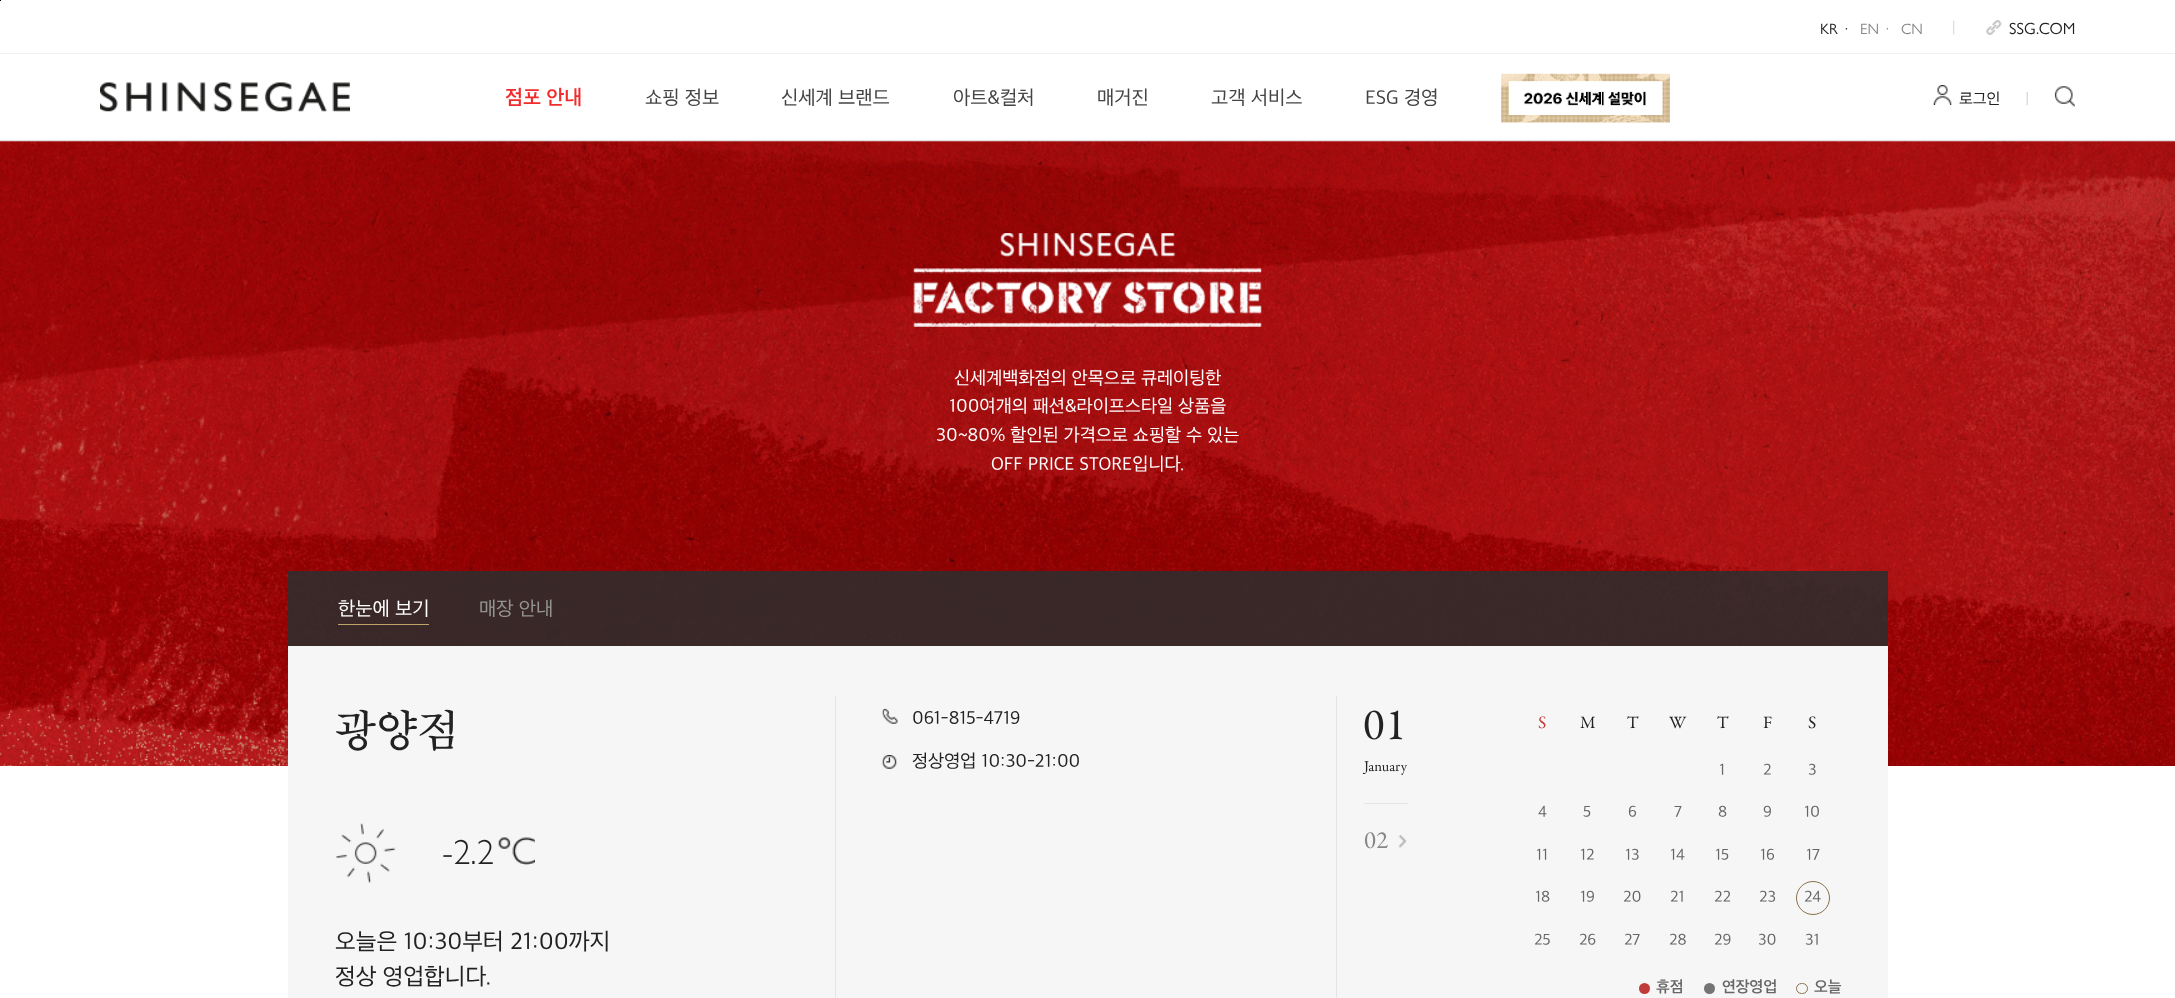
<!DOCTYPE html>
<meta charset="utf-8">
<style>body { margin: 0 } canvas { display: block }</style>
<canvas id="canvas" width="2175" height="998"></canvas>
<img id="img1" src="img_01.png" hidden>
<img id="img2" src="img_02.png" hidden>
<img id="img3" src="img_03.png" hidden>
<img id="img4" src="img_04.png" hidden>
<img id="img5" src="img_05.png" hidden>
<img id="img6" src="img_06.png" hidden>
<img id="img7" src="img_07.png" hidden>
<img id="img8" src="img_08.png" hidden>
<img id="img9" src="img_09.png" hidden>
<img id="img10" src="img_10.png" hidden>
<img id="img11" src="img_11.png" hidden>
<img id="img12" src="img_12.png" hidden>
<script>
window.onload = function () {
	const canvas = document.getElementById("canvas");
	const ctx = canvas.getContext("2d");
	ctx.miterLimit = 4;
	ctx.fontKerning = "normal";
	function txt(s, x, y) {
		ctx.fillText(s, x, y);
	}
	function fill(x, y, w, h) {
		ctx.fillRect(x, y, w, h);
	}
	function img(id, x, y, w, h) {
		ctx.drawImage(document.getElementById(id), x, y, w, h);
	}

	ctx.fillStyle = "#FFFFFF";
	fill(0, 0, 2175, 998);
	ctx.fillStyle = "#000000";
	fill(0, 0, 1, 1);
	ctx.fillStyle = "#F0F0F0";
	fill(0, 53, 2175, 1);
	img("img1", 1986, 20, 16, 15);
	ctx.fillStyle = "#E1E0E1";
	fill(0, 140, 2175, 1);
	img("img2", 100, 82, 250, 30);
	img("img3", 1501, 73, 169, 50);
	img("img4", 1933, 85, 19, 20);
	img("img5", 2054, 86, 21, 21);
	img("img6", 0, 141, 2175, 625);
	img("img7", 913, 233, 349, 94);
	ctx.fillStyle = "rgba(45, 45, 45, 0.88)";
	fill(288, 571, 1600, 75);
	ctx.fillStyle = "#BEA36B";
	fill(338, 624, 91, 1);
	ctx.fillStyle = "#F6F6F6";
	fill(288, 646, 1600, 352);
	ctx.fillStyle = "#E5E5E5";
	fill(835, 696, 1, 302);
	img("img8", 336, 823, 60, 60);
	img("img9", 498, 837, 37, 28);
	fill(1336, 696, 1, 302);
	img("img10", 882, 708, 16, 16);
	img("img11", 882, 755, 15, 14);
	fill(1364, 803, 44, 1);
	img("img12", 1398, 835, 9, 13);
	ctx.fillStyle = "#C13B38";
	ctx.beginPath();
	ctx.arc(1644.5, 988.5, 5.5, 0, Math.PI * 2);
	ctx.fill();
	ctx.fillStyle = "#747474";
	ctx.beginPath();
	ctx.arc(1709.5, 988.5, 5.5, 0, Math.PI * 2);
	ctx.fill();
	ctx.beginPath();
	ctx.roundRect(1796.5, 983.5, 11, 10, 5);
	ctx.strokeStyle = "#8A714A";
	ctx.stroke();
	ctx.font = "15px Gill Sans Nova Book";
	ctx.fillStyle = "#222222";
	txt("KR", 1820, 34);
	txt("·", 1845, 34);
	ctx.fillStyle = "#888888";
	txt("EN", 1860, 34);
	txt("·", 1886, 34);
	txt("CN", 1901, 34);
	ctx.fillStyle = "#D1D1D1";
	txt("|", 1952, 31);
	ctx.font = "16.25px Gill Sans Nova Book";
	ctx.fillStyle = "#222222";
	txt("SSG.COM", 2009, 34);
	ctx.font = "19.5px 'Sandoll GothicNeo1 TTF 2'";
	ctx.fillStyle = "#F22C2D";
	txt("점포 안내", 505, 103);
	ctx.font = "18.75px 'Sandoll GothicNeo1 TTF'";
	ctx.fillStyle = "#444444";
	txt("쇼핑 정보", 645, 103);
	txt("신세계 브랜드", 781, 103);
	txt("아트&컬처", 953, 103);
	txt("매거진", 1097, 103);
	txt("고객 서비스", 1211, 103);
	txt("ESG 경영", 1365, 103);
	ctx.font = "15px 'Sandoll GothicNeo1 TTF'";
	ctx.fillStyle = "#222222";
	txt("로그인", 1959, 103);
	ctx.fillStyle = "#D1D1D1";
	txt("|", 2025, 103);
	ctx.font = "17.5px 'Sandoll GothicNeo1 TTF'";
	ctx.fillStyle = "#FFFFFF";
	txt("신세계백화점의 안목으로 큐레이팅한", 954, 383);
	txt("100여개의 패션&라이프스타일 상품을", 949, 411);
	txt("30~80% 할인된 가격으로 쇼핑할 수 있는", 936, 440);
	txt("OFF PRICE STORE입니다.", 991, 469);
	ctx.font = "18.75px 'Sandoll GothicNeo1 TTF'";
	txt("한눈에 보기", 338, 614);
	ctx.fillStyle = "#949494";
	txt("매장 안내", 479, 614);
	ctx.font = "44px 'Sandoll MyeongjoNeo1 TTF'";
	ctx.fillStyle = "#222222";
	txt("광양점", 335, 744);
	ctx.font = "300 35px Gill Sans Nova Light";
	txt("-2.2", 442, 864);
	ctx.font = "22.5px 'Sandoll GothicNeo1 TTF'";
	txt("오늘은 10:30부터 21:00까지", 335, 948);
	txt("정상 영업합니다.", 335, 983);
	ctx.font = "17.5px 'Sandoll GothicNeo1 TTF'";
	txt("061-815-4719", 912, 723);
	txt("정상영업 10:30-21:00", 912, 766);
	ctx.font = "45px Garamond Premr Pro";
	txt("01", 1363, 739);
	ctx.font = "15px Garamond Premr Pro";
	txt("January", 1364, 771);
	ctx.font = "25px Garamond Premr Pro";
	ctx.fillStyle = "#888888";
	txt("02", 1364, 848);
	ctx.font = "17.5px Garamond Premr Pro";
	ctx.fillStyle = "#C43B38";
	txt("S", 1538, 728);
	ctx.fillStyle = "#222222";
	txt("M", 1580, 728);
	txt("T", 1627, 728);
	txt("W", 1669, 728);
	txt("T", 1717, 728);
	txt("F", 1763, 728);
	txt("S", 1808, 728);
	ctx.font = "15px 'Sandoll GothicNeo1 TTF'";
	ctx.fillStyle = "#666666";
	txt("1", 1719, 774);
	txt("2", 1763, 774);
	txt("3", 1808, 774);
	txt("4", 1538, 816);
	txt("5", 1583, 816);
	txt("6", 1628, 816);
	txt("7", 1674, 816);
	txt("8", 1718, 816);
	txt("9", 1763, 816);
	txt("10", 1804, 816);
	txt("11", 1536, 859);
	txt("12", 1580, 859);
	txt("13", 1625, 859);
	txt("14", 1670, 859);
	txt("15", 1715, 859);
	txt("16", 1760, 859);
	txt("17", 1806, 859);
	txt("18", 1535, 901);
	txt("19", 1580, 901);
	txt("20", 1623, 901);
	txt("21", 1670, 901);
	txt("22", 1714, 901);
	txt("23", 1759, 901);
	txt("24", 1804, 901);
	ctx.beginPath();
	ctx.arc(1813, 898, 16.5, 0, Math.PI * 2);
	ctx.stroke();
	txt("25", 1534, 944);
	txt("26", 1579, 944);
	txt("27", 1624, 944);
	txt("28", 1669, 944);
	txt("29", 1714, 944);
	txt("30", 1758, 944);
	txt("31", 1805, 944);
	ctx.font = "15px 'Sandoll GothicNeo1 TTF 2'";
	txt("휴점", 1656, 991);
	txt("연장영업", 1722, 991);
	txt("오늘", 1814, 991);
};
</script>
